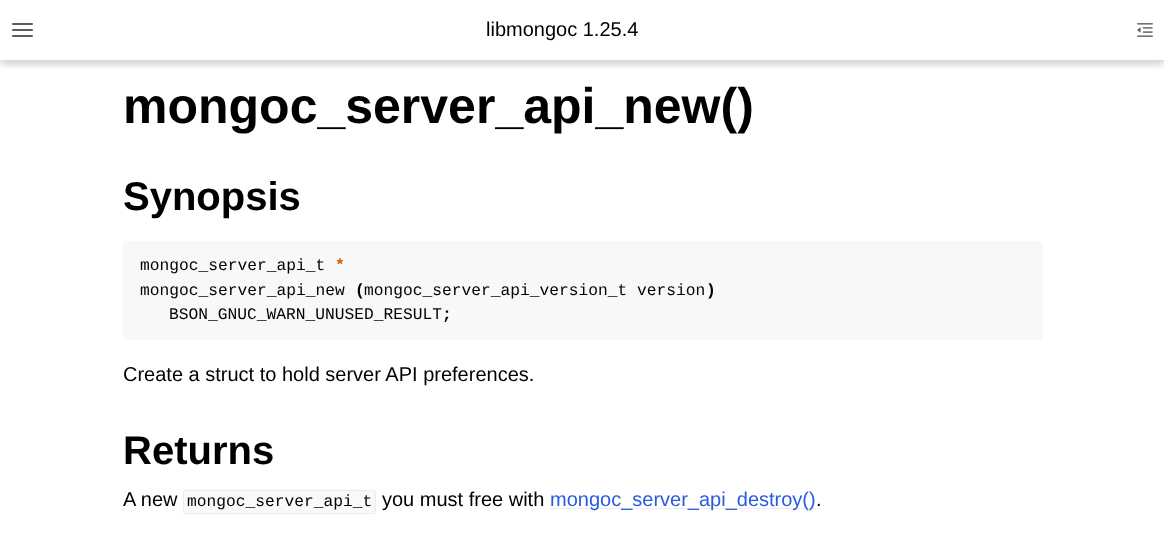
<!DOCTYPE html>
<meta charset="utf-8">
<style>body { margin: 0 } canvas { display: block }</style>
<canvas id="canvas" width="1164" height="558"></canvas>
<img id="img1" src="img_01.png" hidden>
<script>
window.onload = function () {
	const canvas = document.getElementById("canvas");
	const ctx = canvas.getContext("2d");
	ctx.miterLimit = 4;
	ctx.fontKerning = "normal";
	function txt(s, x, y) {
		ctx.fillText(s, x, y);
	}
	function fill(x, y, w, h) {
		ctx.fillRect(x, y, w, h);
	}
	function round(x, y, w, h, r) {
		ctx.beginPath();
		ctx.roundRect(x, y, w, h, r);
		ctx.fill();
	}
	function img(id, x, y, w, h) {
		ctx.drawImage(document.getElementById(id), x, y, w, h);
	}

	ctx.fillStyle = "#FFFFFF";
	fill(0, 0, 1164, 558);
	ctx.save();
	ctx.beginPath();
	ctx.rect(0, 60, 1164, 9);
	ctx.clip();
	ctx.fillStyle = "rgba(0, 0, 0, 0.2)";
	ctx.filter = "blur(4px)";
	ctx.beginPath();
	ctx.rect(0, 4, 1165, 60);
	ctx.fill();
	ctx.filter = "none";
	ctx.restore();
	ctx.beginPath();
	ctx.moveTo(13, 30);
	ctx.lineTo(32, 30);
	ctx.moveTo(13, 24);
	ctx.lineTo(32, 24);
	ctx.moveTo(13, 36);
	ctx.lineTo(32, 36);
	ctx.strokeStyle = "#5A5C63";
	ctx.lineWidth = 2.1;
	ctx.lineCap = "round";
	ctx.lineJoin = "round";
	ctx.stroke();
	img("img1", 1137, 23, 16, 14);
	ctx.fillStyle = "#F8F8F8";
	round(123, 241, 920, 99, 4);
	ctx.fillStyle = "#F8F9FB";
	ctx.beginPath();
	ctx.roundRect(183.5, 490.5, 192, 23, 2.5);
	ctx.fill();
	ctx.strokeStyle = "#EEEBEE";
	ctx.lineWidth = 1;
	ctx.lineJoin = "miter";
	ctx.stroke();
	ctx.fillStyle = "#EEEBEE";
	fill(550, 508, 266, 1);
	ctx.font = "20px Liberation Sans";
	ctx.fillStyle = "#000000";
	txt("libmongoc 1.25.4", 486, 36);
	ctx.font = "bold 50px Liberation Sans";
	txt("mongoc_server_api_new()", 123, 123);
	ctx.font = "bold 40px Liberation Sans";
	txt("Synopsis", 123, 210);
	ctx.font = "16.25px Liberation Mono";
	txt("mongoc_server_api_t", 140, 270);
	ctx.font = "bold 16.25px Liberation Mono";
	ctx.fillStyle = "#CE5C00";
	txt("*", 335, 270);
	ctx.font = "16.25px Liberation Mono";
	ctx.fillStyle = "#000000";
	txt("mongoc_server_api_new", 140, 295);
	ctx.font = "bold 16.25px Liberation Mono";
	txt("(", 355, 295);
	ctx.font = "16.25px Liberation Mono";
	txt("mongoc_server_api_version_t version", 364, 295);
	ctx.font = "bold 16.25px Liberation Mono";
	txt(")", 706, 295);
	ctx.font = "16.25px Liberation Mono";
	txt("BSON_GNUC_WARN_UNUSED_RESULT", 169, 319);
	ctx.font = "bold 16.25px Liberation Mono";
	txt(";", 442, 319);
	ctx.font = "20px Liberation Sans";
	txt("Create a struct to hold server API preferences.", 123, 381);
	ctx.font = "bold 40px Liberation Sans";
	txt("Returns", 123, 464);
	ctx.font = "20px Liberation Sans";
	txt("A new", 123, 506);
	ctx.font = "16.25px Liberation Mono";
	txt("mongoc_server_api_t", 187, 506);
	ctx.font = "20px Liberation Sans";
	txt("you must free with", 382, 506);
	ctx.fillStyle = "#2A5ADF";
	txt("mongoc_server_api_destroy()", 550, 506);
	ctx.fillStyle = "#000000";
	txt(".", 816, 506);
};
</script>
